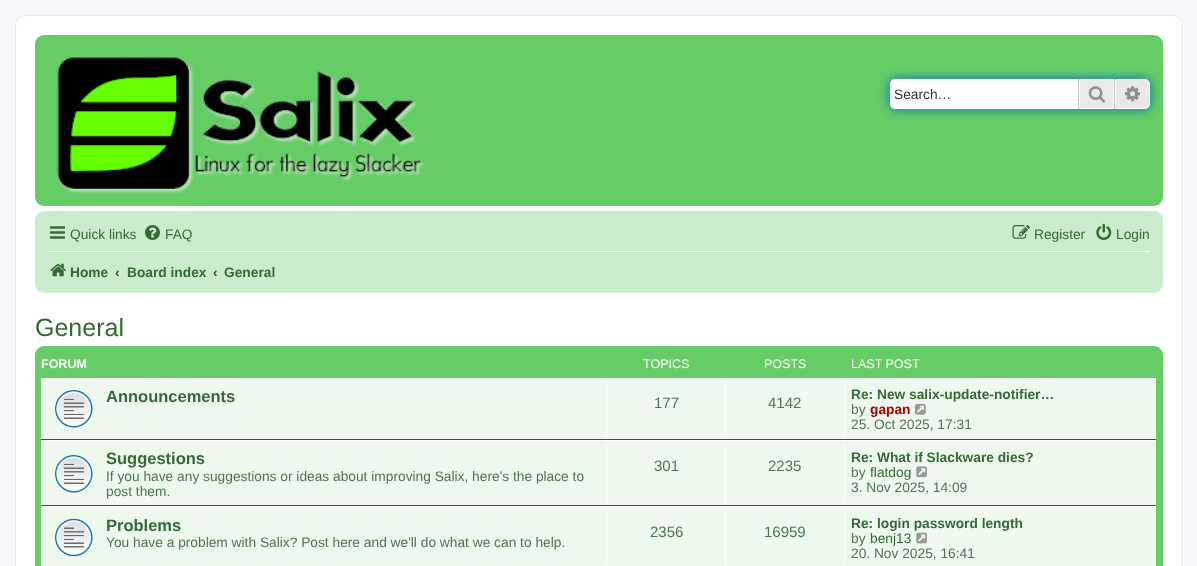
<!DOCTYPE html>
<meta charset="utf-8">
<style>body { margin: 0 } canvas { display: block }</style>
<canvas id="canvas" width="1197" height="566"></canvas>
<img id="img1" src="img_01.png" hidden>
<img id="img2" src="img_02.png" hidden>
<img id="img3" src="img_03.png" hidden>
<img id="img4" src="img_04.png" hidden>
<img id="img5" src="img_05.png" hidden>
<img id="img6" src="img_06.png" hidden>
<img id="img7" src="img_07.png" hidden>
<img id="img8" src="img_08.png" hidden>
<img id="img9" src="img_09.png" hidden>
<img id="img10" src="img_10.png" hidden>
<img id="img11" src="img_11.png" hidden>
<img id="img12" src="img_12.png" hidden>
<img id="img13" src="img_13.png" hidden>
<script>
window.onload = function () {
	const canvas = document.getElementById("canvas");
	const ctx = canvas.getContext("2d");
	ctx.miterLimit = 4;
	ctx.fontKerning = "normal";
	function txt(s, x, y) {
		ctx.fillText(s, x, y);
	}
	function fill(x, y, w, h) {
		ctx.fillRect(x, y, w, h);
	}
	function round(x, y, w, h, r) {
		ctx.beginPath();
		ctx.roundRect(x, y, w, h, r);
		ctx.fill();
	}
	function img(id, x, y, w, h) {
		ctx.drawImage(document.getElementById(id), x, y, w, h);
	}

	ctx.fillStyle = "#F5F7FA";
	fill(0, 0, 1197, 566);
	ctx.fillStyle = "#FFFFFF";
	ctx.beginPath();
	ctx.roundRect(15.5, 15.5, 1167, 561, 9.5);
	ctx.fill();
	ctx.strokeStyle = "#E6E9ED";
	ctx.stroke();
	ctx.fillStyle = "#66CC66";
	round(35, 35, 1128, 171, 9);
	img("img1", 57, 57, 368, 137);
	ctx.fillStyle = "#0075B0";
	ctx.filter = "blur(6px)";
	ctx.beginPath();
	ctx.roundRect(890, 79, 260, 30, 5);
	ctx.fill();
	ctx.filter = "none";
	ctx.fillStyle = "#FFFFFF";
	ctx.beginPath();
	ctx.roundRect(890, 79, 188, 30, [5, 0, 0, 5]);
	ctx.fill();
	ctx.fillStyle = "#E9E9E9";
	ctx.beginPath();
	ctx.rect(1079.5, 79.5, 34, 29);
	ctx.fill();
	ctx.strokeStyle = "#FFFFFF";
	ctx.stroke();
	ctx.fillStyle = "#C7C3BF";
	fill(1114, 79, 1, 30);
	fill(1078, 79, 1, 30);
	img("img2", 1088, 86, 17, 17);
	ctx.fillStyle = "#E9E9E9";
	ctx.beginPath();
	ctx.roundRect(1115.5, 79.5, 34, 29, [0, 4.5, 4.5, 0]);
	ctx.fill();
	ctx.stroke();
	img("img3", 1125, 86, 15, 16);
	ctx.fillStyle = "#CAEBCC";
	round(35, 211, 1128, 82, 9);
	img("img4", 50, 226, 15, 13);
	img("img5", 145, 225, 15, 15);
	img("img6", 1012, 225, 18, 14);
	img("img7", 1096, 223, 16, 17);
	ctx.fillStyle = "#FFFFFF";
	fill(48, 251, 1102, 1);
	img("img8", 50, 263, 16, 14);
	ctx.fillStyle = "#66CC66";
	round(35, 346, 1128, 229, 9);
	ctx.fillStyle = "#EEF9EE";
	fill(41, 379, 1115, 187);
	ctx.fillStyle = "#FFFFFF";
	fill(41, 378, 1115, 1);
	ctx.fillStyle = "#00608F";
	fill(41, 439, 1115, 1);
	img("img9", 55, 390, 38, 38);
	ctx.fillStyle = "#FFFFFF";
	fill(606, 381, 1, 55);
	fill(725, 381, 1, 55);
	fill(844, 381, 1, 55);
	img("img10", 915, 403, 11, 12);
	fill(41, 440, 1115, 1);
	ctx.fillStyle = "#00608F";
	fill(41, 505, 1115, 1);
	img("img9", 55, 455, 38, 38);
	ctx.fillStyle = "#FFFFFF";
	fill(606, 444, 1, 59);
	fill(725, 444, 1, 59);
	fill(844, 444, 1, 59);
	img("img11", 916, 466, 11, 12);
	fill(41, 506, 1115, 1);
	img("img12", 55, 518, 38, 39);
	fill(606, 510, 1, 55);
	fill(725, 510, 1, 55);
	fill(844, 510, 1, 55);
	img("img13", 916, 532, 11, 12);
	ctx.font = "13.75px Liberation Sans";
	ctx.fillStyle = "#333333";
	txt("Search…", 894, 99);
	ctx.fillStyle = "#346B34";
	txt("Quick links", 70, 239);
	txt("FAQ", 165, 239);
	txt("Register", 1034, 239);
	txt("Login", 1116, 239);
	ctx.font = "bold 13.75px Liberation Sans";
	txt("Home", 70, 277);
	ctx.fillStyle = "#444444";
	txt("‹", 115, 277);
	ctx.fillStyle = "#346B34";
	txt("Board index", 127, 277);
	ctx.fillStyle = "#444444";
	txt("‹", 213, 277);
	ctx.fillStyle = "#346B34";
	txt("General", 224, 277);
	ctx.font = "25px Liberation Sans";
	txt("General", 35, 336);
	ctx.font = "bold 12.5px Liberation Sans";
	ctx.fillStyle = "#FFFFFF";
	txt("FORUM", 41, 368);
	ctx.font = "12.5px Liberation Sans";
	txt("TOPICS", 643, 368);
	txt("POSTS", 764, 368);
	txt("LAST POST", 851, 368);
	ctx.font = "bold 16.5px Liberation Sans";
	ctx.fillStyle = "#346B34";
	txt("Announcements", 106, 402);
	ctx.font = "15px Liberation Sans";
	ctx.fillStyle = "#4C774C";
	txt("177", 654, 408);
	txt("4142", 768, 408);
	ctx.font = "bold 13.75px Liberation Sans";
	ctx.fillStyle = "#346B34";
	txt("Re: New salix-update-notifier…", 851, 399);
	ctx.font = "13.75px Liberation Sans";
	ctx.fillStyle = "#4C774C";
	txt("by", 851, 414);
	ctx.font = "bold 13.75px Liberation Sans";
	ctx.fillStyle = "#AA0000";
	txt("gapan", 870, 414);
	ctx.font = "13.75px Liberation Sans";
	ctx.fillStyle = "#4C774C";
	txt("25. Oct 2025, 17:31", 851, 429);
	ctx.font = "bold 16.5px Liberation Sans";
	ctx.fillStyle = "#346B34";
	txt("Suggestions", 106, 464);
	ctx.font = "13.75px Liberation Sans";
	ctx.fillStyle = "#4C774C";
	txt("If you have any suggestions or ideas about improving Salix, here's the place to", 106, 481);
	txt("post them.", 106, 496);
	ctx.font = "15px Liberation Sans";
	txt("301", 654, 471);
	txt("2235", 768, 471);
	ctx.font = "bold 13.75px Liberation Sans";
	ctx.fillStyle = "#346B34";
	txt("Re: What if Slackware dies?", 851, 462);
	ctx.font = "13.75px Liberation Sans";
	ctx.fillStyle = "#4C774C";
	txt("by", 851, 477);
	ctx.fillStyle = "#346B34";
	txt("flatdog", 870, 477);
	ctx.fillStyle = "#4C774C";
	txt("3. Nov 2025, 14:09", 851, 492);
	ctx.font = "bold 16.5px Liberation Sans";
	ctx.fillStyle = "#346B34";
	txt("Problems", 106, 531);
	ctx.font = "13.75px Liberation Sans";
	ctx.fillStyle = "#4C774C";
	txt("You have a problem with Salix? Post here and we'll do what we can to help.", 106, 547);
	ctx.font = "15px Liberation Sans";
	txt("2356", 650, 537);
	txt("16959", 764, 537);
	ctx.font = "bold 13.75px Liberation Sans";
	ctx.fillStyle = "#346B34";
	txt("Re: login password length", 851, 528);
	ctx.font = "13.75px Liberation Sans";
	ctx.fillStyle = "#4C774C";
	txt("by", 851, 543);
	ctx.fillStyle = "#346B34";
	txt("benj13", 870, 543);
	ctx.fillStyle = "#4C774C";
	txt("20. Nov 2025, 16:41", 851, 558);
};
</script>
